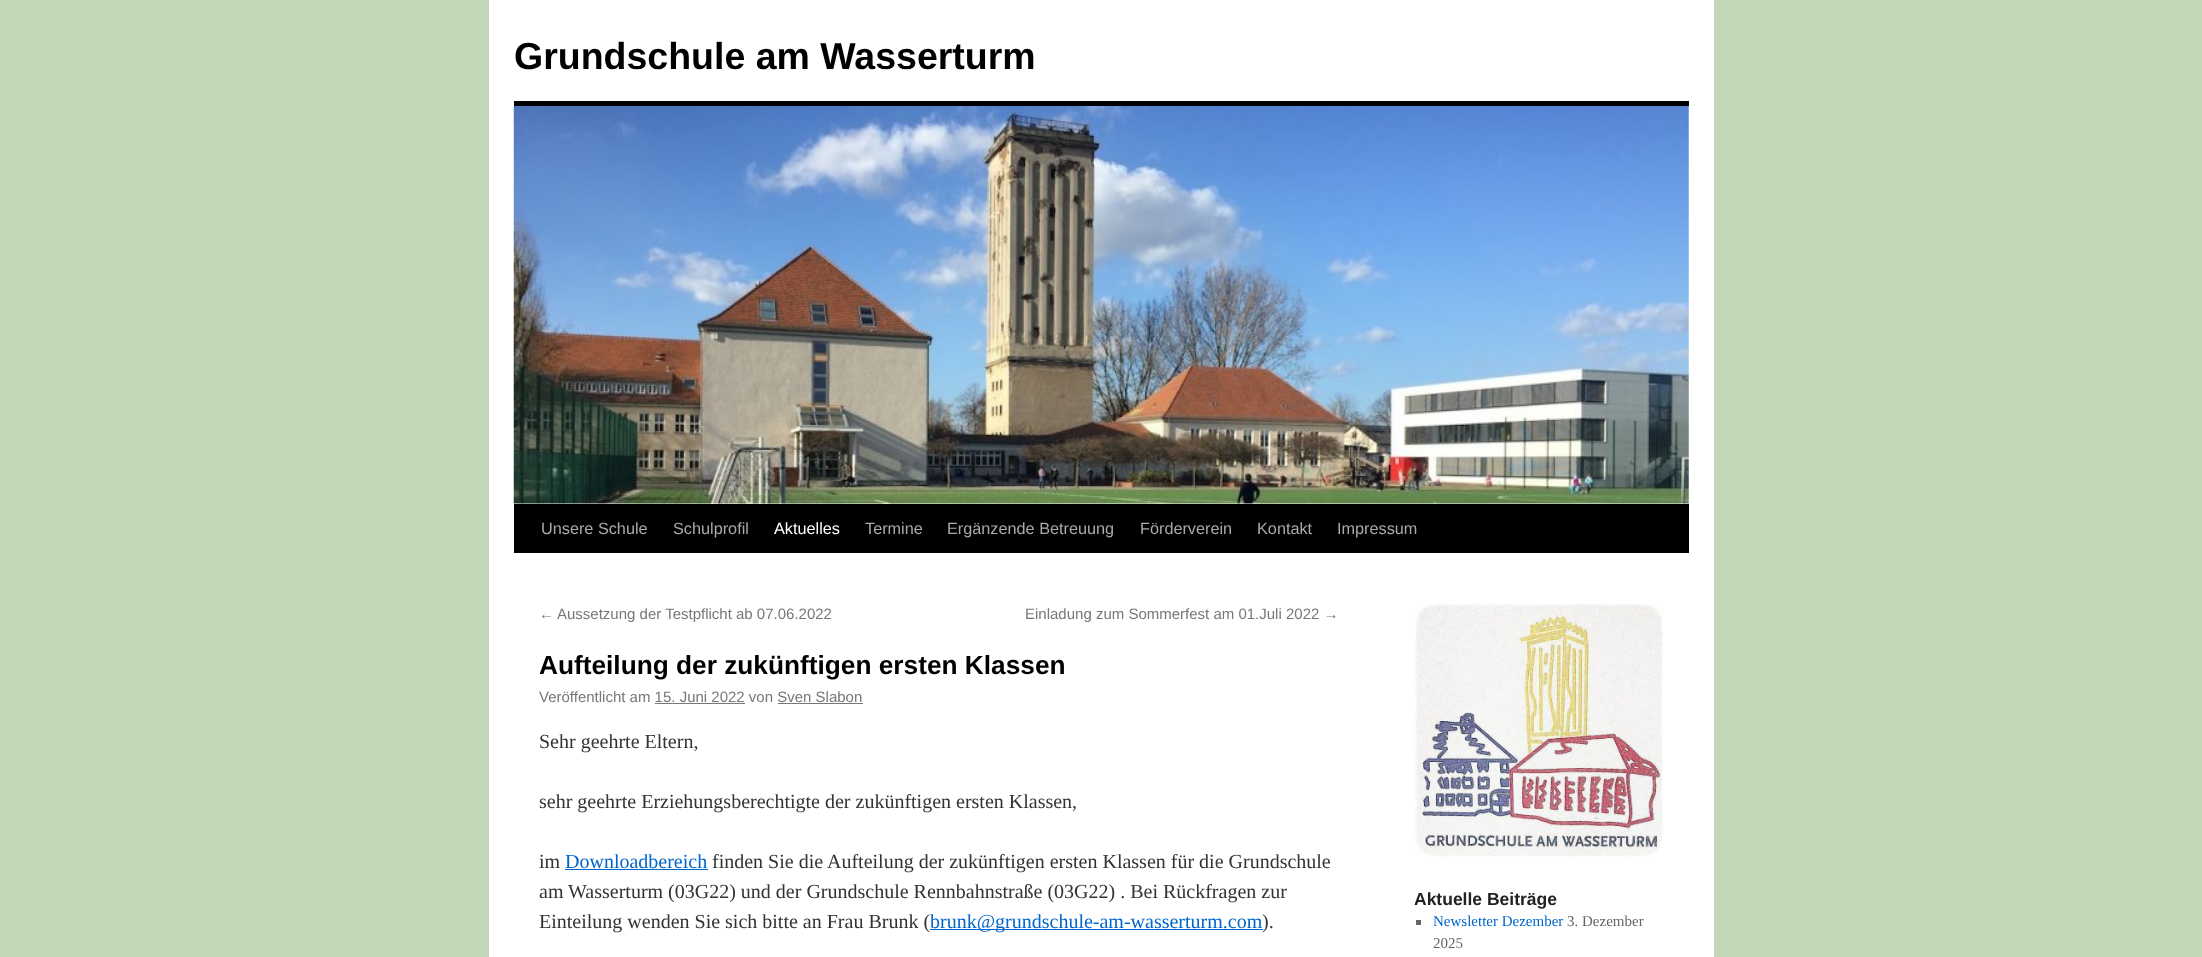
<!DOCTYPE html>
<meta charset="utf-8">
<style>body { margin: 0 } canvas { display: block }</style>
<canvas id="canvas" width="2202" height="957"></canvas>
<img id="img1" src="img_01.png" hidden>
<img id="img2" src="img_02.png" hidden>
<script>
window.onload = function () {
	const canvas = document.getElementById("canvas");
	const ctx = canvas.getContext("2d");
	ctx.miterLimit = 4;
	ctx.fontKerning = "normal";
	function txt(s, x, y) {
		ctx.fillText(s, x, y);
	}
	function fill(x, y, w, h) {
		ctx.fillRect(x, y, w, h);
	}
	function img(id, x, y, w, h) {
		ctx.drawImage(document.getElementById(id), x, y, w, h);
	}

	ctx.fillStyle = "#C2D6B8";
	fill(0, 0, 2202, 957);
	ctx.fillStyle = "#FFFFFF";
	fill(489, 0, 1225, 957);
	ctx.fillStyle = "#000000";
	fill(514, 101, 1175, 5);
	fill(514, 504, 1175, 49);
	img("img1", 513, 106, 1176, 398);
	ctx.fillStyle = "#777777";
	fill(655, 703, 90, 1);
	fill(778, 703, 85, 1);
	ctx.fillStyle = "#0066CC";
	fill(565, 869, 143, 1);
	fill(930, 929, 333, 1);
	img("img2", 1414, 603, 250, 254);
	ctx.fillStyle = "#666666";
	fill(1416, 920, 5, 5);
	ctx.font = "bold 37.5px Liberation Sans";
	ctx.fillStyle = "#000000";
	txt("Grundschule am Wasserturm", 514, 69);
	ctx.font = "16.25px Liberation Sans";
	ctx.fillStyle = "#AAAAAA";
	txt("Unsere Schule", 541, 534);
	txt("Schulprofil", 673, 534);
	ctx.fillStyle = "#FFFFFF";
	txt("Aktuelles", 774, 534);
	ctx.fillStyle = "#AAAAAA";
	txt("Termine", 865, 534);
	txt("Ergänzende Betreuung", 947, 534);
	txt("Förderverein", 1140, 534);
	txt("Kontakt", 1257, 534);
	txt("Impressum", 1337, 534);
	ctx.font = "15px Liberation Sans";
	ctx.fillStyle = "#777777";
	txt("←", 539, 619);
	txt("Aussetzung der Testpflicht ab 07.06.2022", 557, 619);
	txt("Einladung zum Sommerfest am 01.Juli 2022 →", 1025, 619);
	ctx.font = "bold 26.25px Liberation Sans";
	ctx.fillStyle = "#000000";
	txt("Aufteilung der zukünftigen ersten Klassen", 539, 674);
	ctx.font = "15px Liberation Sans";
	ctx.fillStyle = "#777777";
	txt("Veröffentlicht am 15. Juni 2022 von Sven Slabon", 539, 702);
	ctx.font = "20px Liberation Serif";
	ctx.fillStyle = "#333333";
	txt("Sehr geehrte Eltern,", 539, 748);
	txt("sehr geehrte Erziehungsberechtigte der zukünftigen ersten Klassen,", 539, 808);
	txt("im", 539, 868);
	ctx.fillStyle = "#0066CC";
	txt("Downloadbereich", 565, 868);
	ctx.fillStyle = "#333333";
	txt("finden Sie die Aufteilung der zukünftigen ersten Klassen für die Grundschule", 712, 868);
	txt("am Wasserturm (03G22) und der Grundschule Rennbahnstraße (03G22) . Bei Rückfragen zur", 539, 898);
	txt("Einteilung wenden Sie sich bitte an Frau Brunk (", 539, 928);
	ctx.fillStyle = "#0066CC";
	txt("brunk@grundschule-am-wasserturm.com", 930, 928);
	ctx.fillStyle = "#333333";
	txt(").", 1262, 928);
	ctx.font = "bold 17.5px Liberation Sans";
	ctx.fillStyle = "#222222";
	txt("Aktuelle Beiträge", 1414, 905);
	ctx.font = "15px Liberation Serif";
	ctx.fillStyle = "#0066CC";
	txt("Newsletter Dezember", 1433, 926);
	ctx.fillStyle = "#666666";
	txt("3. Dezember", 1567, 926);
	txt("2025", 1433, 948);
};
</script>
